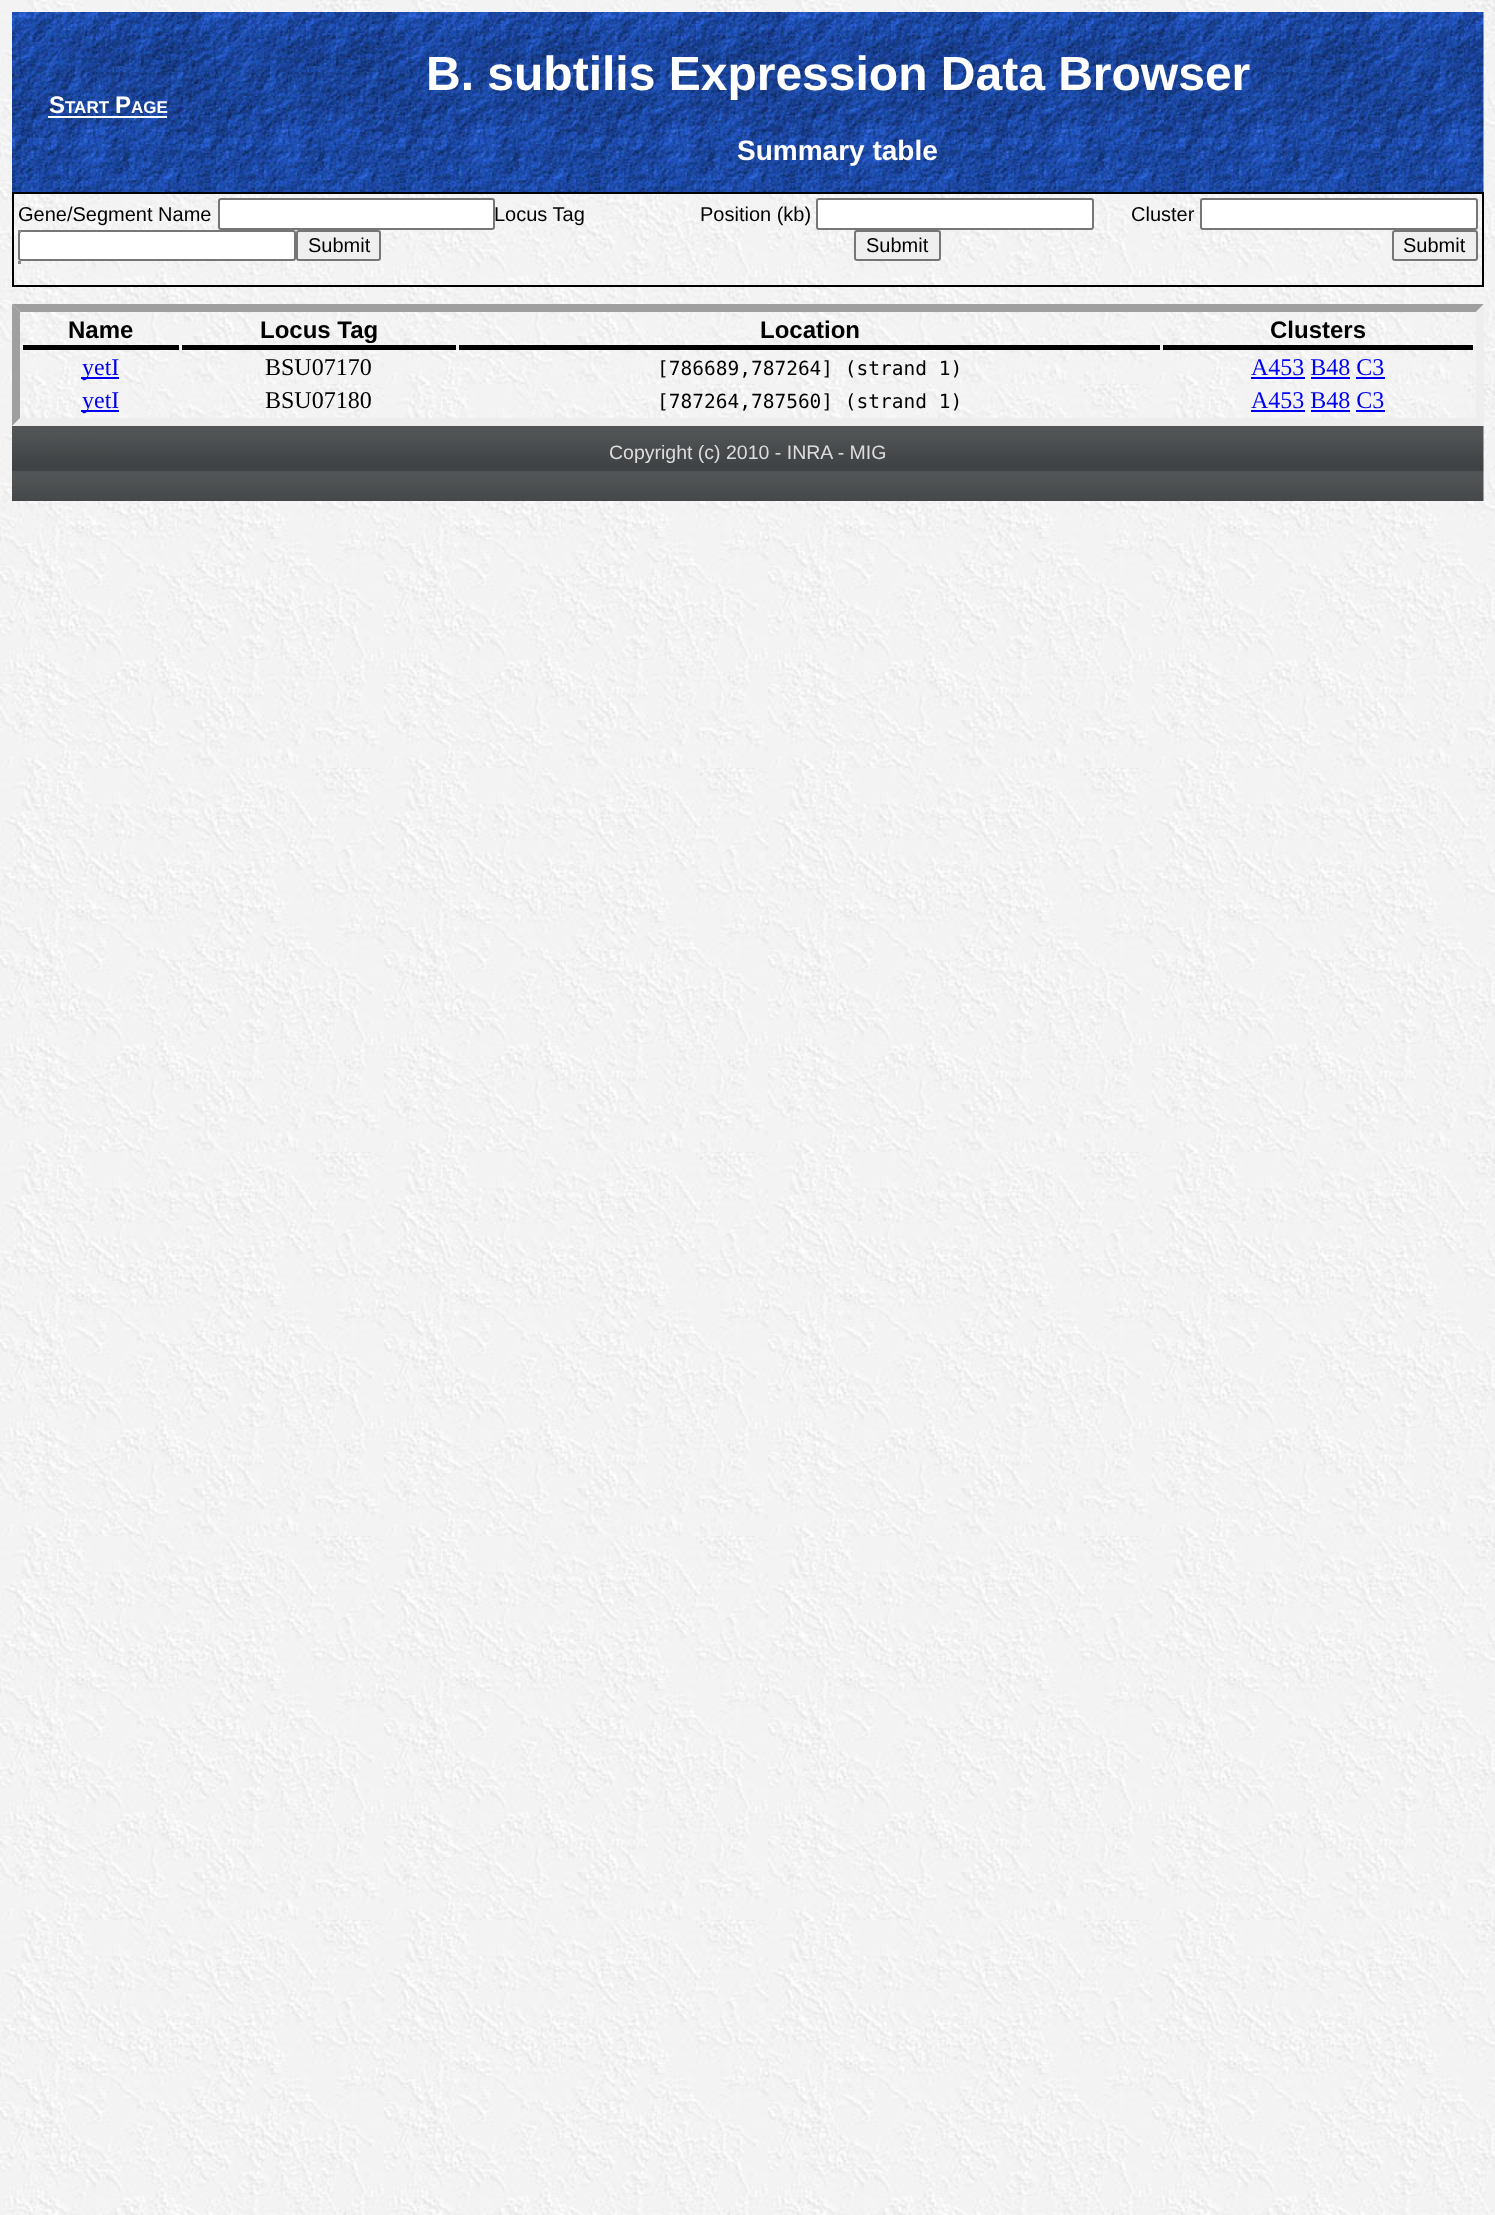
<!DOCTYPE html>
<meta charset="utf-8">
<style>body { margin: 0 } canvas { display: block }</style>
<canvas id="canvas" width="1495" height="2215"></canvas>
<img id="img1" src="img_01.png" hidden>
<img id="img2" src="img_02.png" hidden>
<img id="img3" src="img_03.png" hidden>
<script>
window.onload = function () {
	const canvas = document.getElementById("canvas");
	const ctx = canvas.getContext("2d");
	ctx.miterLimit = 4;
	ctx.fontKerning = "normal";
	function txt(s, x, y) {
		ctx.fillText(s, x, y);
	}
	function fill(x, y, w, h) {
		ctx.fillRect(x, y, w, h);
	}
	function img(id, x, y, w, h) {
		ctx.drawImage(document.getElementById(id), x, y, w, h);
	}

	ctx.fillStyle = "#FFFFFF";
	fill(0, 0, 1495, 2215);
	img("img1", 0, 0, 1495, 2215);
	img("img2", 12, 12, 1472, 180);
	fill(48, 116, 119, 2);
	ctx.strokeStyle = "#000000";
	ctx.lineWidth = 2;
	ctx.strokeRect(13, 193, 1470, 93);
	ctx.beginPath();
	ctx.roundRect(219, 199, 275, 30, 2);
	ctx.fill();
	ctx.strokeStyle = "#767676";
	ctx.stroke();
	ctx.beginPath();
	ctx.roundRect(19, 231, 276, 29, 2);
	ctx.fill();
	ctx.stroke();
	ctx.fillStyle = "#888888";
	fill(18, 230, 3, 3);
	ctx.fillStyle = "#EFEFEF";
	ctx.beginPath();
	ctx.roundRect(297, 231, 83, 29, 2);
	ctx.fill();
	ctx.stroke();
	ctx.fillStyle = "#888888";
	fill(18, 261, 3, 3);
	ctx.fillStyle = "#FFFFFF";
	ctx.beginPath();
	ctx.roundRect(817, 199, 276, 30, 2);
	ctx.fill();
	ctx.stroke();
	ctx.fillStyle = "#EFEFEF";
	ctx.beginPath();
	ctx.roundRect(855, 231, 85, 29, 2);
	ctx.fill();
	ctx.stroke();
	ctx.fillStyle = "#FFFFFF";
	ctx.beginPath();
	ctx.roundRect(1201, 199, 276, 30, 2);
	ctx.fill();
	ctx.stroke();
	ctx.fillStyle = "#EFEFEF";
	ctx.beginPath();
	ctx.roundRect(1393, 231, 84, 29, 2);
	ctx.fill();
	ctx.stroke();
	ctx.fillStyle = "#9F9F9F";
	ctx.beginPath();
	ctx.moveTo(12, 304);
	ctx.lineTo(1484, 304);
	ctx.lineTo(1476, 312);
	ctx.lineTo(20, 312);
	ctx.closePath();
	ctx.fill();
	ctx.fillStyle = "#EEEEEE";
	ctx.beginPath();
	ctx.moveTo(1484, 304);
	ctx.lineTo(1484, 426);
	ctx.lineTo(1476, 418);
	ctx.lineTo(1476, 312);
	ctx.closePath();
	ctx.fill();
	ctx.beginPath();
	ctx.moveTo(1484, 426);
	ctx.lineTo(12, 426);
	ctx.lineTo(20, 418);
	ctx.lineTo(1476, 418);
	ctx.closePath();
	ctx.fill();
	ctx.fillStyle = "#9F9F9F";
	ctx.beginPath();
	ctx.moveTo(12, 426);
	ctx.lineTo(12, 304);
	ctx.lineTo(20, 312);
	ctx.lineTo(20, 418);
	ctx.closePath();
	ctx.fill();
	ctx.fillStyle = "#000000";
	fill(23, 345, 156, 5);
	fill(182, 345, 274, 5);
	fill(459, 345, 701, 5);
	fill(1163, 345, 310, 5);
	ctx.fillStyle = "#0000EE";
	fill(81, 377, 38, 2);
	fill(1251, 377, 54, 2);
	fill(1311, 377, 39, 2);
	fill(1356, 377, 29, 2);
	fill(81, 410, 38, 2);
	fill(1251, 410, 54, 2);
	fill(1311, 410, 39, 2);
	fill(1356, 410, 29, 2);
	img("img3", 12, 426, 1472, 75);
	ctx.font = "bold 24px Liberation Sans";
	ctx.fillStyle = "#FFFFFF";
	txt("S", 49, 113);
	ctx.font = "bold 17px Liberation Sans";
	txt("TART", 65, 113);
	ctx.font = "bold 24px Liberation Sans";
	txt("P", 115, 113);
	ctx.font = "bold 17px Liberation Sans";
	txt("AGE", 131, 113);
	ctx.font = "bold 48px Liberation Sans";
	txt("B. subtilis Expression Data Browser", 426, 90);
	ctx.font = "bold 28px Liberation Sans";
	txt("Summary table", 737, 160);
	ctx.font = "20px Liberation Sans";
	ctx.fillStyle = "#000000";
	txt("Gene/Segment Name", 18, 221);
	txt("Locus Tag", 494, 221);
	txt("Submit", 308, 252);
	txt("Position (kb)", 700, 221);
	txt("Submit", 866, 252);
	txt("Cluster", 1131, 221);
	txt("Submit", 1403, 252);
	ctx.font = "bold 24px Liberation Sans";
	txt("Name", 68, 338);
	txt("Locus Tag", 260, 338);
	txt("Location", 760, 338);
	txt("Clusters", 1270, 338);
	ctx.font = "24px Liberation Serif";
	ctx.fillStyle = "#0000EE";
	txt("yetI", 82, 375);
	ctx.fillStyle = "#000000";
	txt("BSU07170", 265, 375);
	ctx.font = "19.5px DejaVu Sans Mono";
	txt("[786689,787264] (strand 1)", 657, 375);
	ctx.font = "24px Liberation Serif";
	ctx.fillStyle = "#0000EE";
	txt("A453 B48 C3", 1251, 375);
	txt("yetI", 82, 408);
	ctx.fillStyle = "#000000";
	txt("BSU07180", 265, 408);
	ctx.font = "19.5px DejaVu Sans Mono";
	txt("[787264,787560] (strand 1)", 657, 408);
	ctx.font = "24px Liberation Serif";
	ctx.fillStyle = "#0000EE";
	txt("A453 B48 C3", 1251, 408);
	ctx.font = "19.5px Liberation Sans";
	ctx.fillStyle = "#DDDDDD";
	txt("Copyright (c) 2010 - INRA - MIG", 609, 459);
};
</script>
